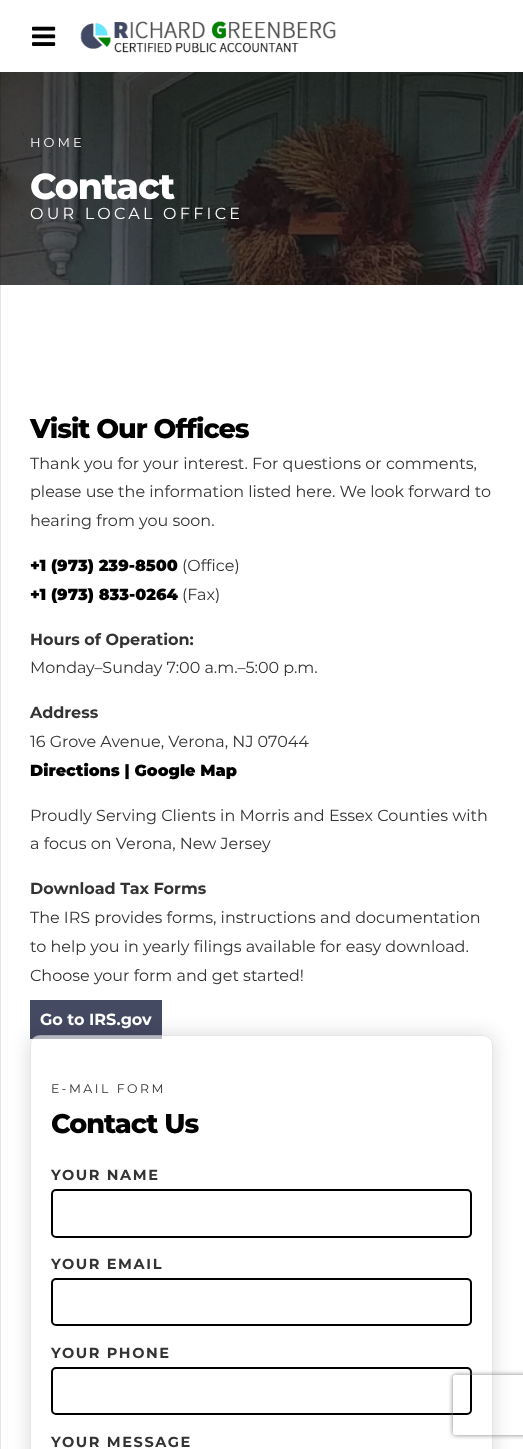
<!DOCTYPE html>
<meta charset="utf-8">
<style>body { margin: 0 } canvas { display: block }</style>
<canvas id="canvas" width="523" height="1449"></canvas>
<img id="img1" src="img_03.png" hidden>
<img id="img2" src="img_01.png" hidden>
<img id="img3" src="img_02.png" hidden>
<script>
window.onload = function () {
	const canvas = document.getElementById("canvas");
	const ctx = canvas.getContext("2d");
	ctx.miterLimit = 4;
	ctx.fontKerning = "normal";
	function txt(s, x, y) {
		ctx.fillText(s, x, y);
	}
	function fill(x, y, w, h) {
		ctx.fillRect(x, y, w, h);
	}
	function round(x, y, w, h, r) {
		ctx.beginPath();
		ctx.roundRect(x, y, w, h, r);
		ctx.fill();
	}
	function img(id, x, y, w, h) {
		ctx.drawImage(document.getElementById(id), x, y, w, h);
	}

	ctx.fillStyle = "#FFFFFF";
	fill(0, 0, 523, 1449);
	img("img1", 0, 72, 523, 213);
	ctx.fillStyle = "#454A63";
	fill(30, 1000, 132, 39);
	ctx.save();
	ctx.beginPath();
	ctx.moveTo(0, 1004);
	ctx.lineTo(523, 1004);
	ctx.lineTo(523, 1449);
	ctx.lineTo(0, 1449);
	ctx.closePath();
	ctx.moveTo(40, 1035);
	ctx.lineTo(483, 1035);
	ctx.bezierCurveTo(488.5, 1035, 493, 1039.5, 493, 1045);
	ctx.lineTo(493, 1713);
	ctx.bezierCurveTo(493, 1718.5, 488.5, 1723, 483, 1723);
	ctx.lineTo(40, 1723);
	ctx.bezierCurveTo(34.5, 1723, 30, 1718.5, 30, 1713);
	ctx.lineTo(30, 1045);
	ctx.bezierCurveTo(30, 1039.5, 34.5, 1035, 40, 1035);
	ctx.closePath();
	ctx.clip("evenodd");
	ctx.fillStyle = "rgba(0, 0, 0, 0.15)";
	ctx.filter = "blur(10px)";
	ctx.beginPath();
	ctx.roundRect(30, 1035, 463, 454, 10);
	ctx.fill();
	ctx.filter = "none";
	ctx.restore();
	ctx.fillStyle = "rgba(0, 0, 0, 0.1)";
	fill(0, 72, 1, 1377);
	img("img2", 32, 26, 24, 20);
	img("img3", 80, 21, 256, 32);
	ctx.fillStyle = "rgba(255, 255, 255, 0.6)";
	round(30, 1035, 463, 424, 10);
	ctx.beginPath();
	ctx.roundRect(30.5, 1035.5, 462, 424, 9.5);
	ctx.strokeStyle = "rgba(0, 0, 0, 0.1)";
	ctx.stroke();
	ctx.beginPath();
	ctx.roundRect(52, 1190, 419, 47, 4);
	ctx.strokeStyle = "#000000";
	ctx.lineWidth = 2;
	ctx.stroke();
	ctx.beginPath();
	ctx.roundRect(52, 1279, 419, 46, 4);
	ctx.stroke();
	ctx.beginPath();
	ctx.roundRect(52, 1368, 419, 46, 4);
	ctx.stroke();
	ctx.save();
	ctx.beginPath();
	ctx.moveTo(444, 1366);
	ctx.lineTo(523, 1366);
	ctx.lineTo(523, 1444);
	ctx.lineTo(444, 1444);
	ctx.closePath();
	ctx.moveTo(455, 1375);
	ctx.lineTo(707, 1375);
	ctx.bezierCurveTo(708, 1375, 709, 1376, 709, 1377);
	ctx.lineTo(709, 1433);
	ctx.bezierCurveTo(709, 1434, 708, 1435, 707, 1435);
	ctx.lineTo(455, 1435);
	ctx.bezierCurveTo(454, 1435, 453, 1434, 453, 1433);
	ctx.lineTo(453, 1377);
	ctx.bezierCurveTo(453, 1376, 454, 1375, 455, 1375);
	ctx.closePath();
	ctx.clip("evenodd");
	ctx.fillStyle = "#808080";
	ctx.filter = "blur(2.5px)";
	ctx.beginPath();
	ctx.roundRect(453, 1375, 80, 60, 2);
	ctx.fill();
	ctx.filter = "none";
	ctx.restore();
	ctx.letterSpacing = "3px";
	ctx.font = "13px Montserrat";
	ctx.fillStyle = "#FFFFFF";
	txt("HOME", 30, 147);
	ctx.letterSpacing = "-1px";
	ctx.font = "800 36px Montserrat";
	txt("Contact", 30, 199);
	ctx.letterSpacing = "3.25px";
	ctx.font = "16px Montserrat";
	txt("OUR LOCAL OFFICE", 30, 219);
	ctx.letterSpacing = "-1px";
	ctx.font = "800 27px Montserrat";
	ctx.fillStyle = "#000000";
	txt("Visit Our Offices", 30, 438);
	ctx.letterSpacing = "0px";
	ctx.font = "16px Montserrat";
	ctx.fillStyle = "#333333";
	txt("Thank you for your interest. For questions or comments,", 30, 469);
	txt("please use the information listed here. We look forward to", 30, 497);
	txt("hearing from you soon.", 30, 526);
	ctx.font = "900 16px Montserrat";
	ctx.fillStyle = "#000000";
	txt("+1 (973) 239-8500", 30, 571);
	ctx.font = "16px Montserrat";
	ctx.fillStyle = "#333333";
	txt("(Office)", 182, 571);
	ctx.font = "900 16px Montserrat";
	ctx.fillStyle = "#000000";
	txt("+1 (973) 833-0264", 30, 600);
	ctx.font = "16px Montserrat";
	ctx.fillStyle = "#333333";
	txt("(Fax)", 182, 600);
	ctx.font = "bold 16px Montserrat";
	txt("Hours of Operation:", 30, 645);
	ctx.font = "16px Montserrat";
	txt("Monday–Sunday 7:00 a.m.–5:00 p.m.", 30, 673);
	ctx.font = "bold 16px Montserrat";
	txt("Address", 30, 718);
	ctx.font = "16px Montserrat";
	txt("16 Grove Avenue, Verona, NJ 07044", 30, 747);
	ctx.font = "900 16px Montserrat";
	ctx.fillStyle = "#000000";
	txt("Directions | Google Map", 30, 776);
	ctx.font = "16px Montserrat";
	ctx.fillStyle = "#333333";
	txt("Proudly Serving Clients in Morris and Essex Counties with", 30, 821);
	txt("a focus on Verona, New Jersey", 30, 849);
	ctx.font = "bold 16px Montserrat";
	txt("Download Tax Forms", 30, 894);
	ctx.font = "16px Montserrat";
	txt("The IRS provides forms, instructions and documentation", 30, 923);
	txt("to help you in yearly filings available for easy download.", 30, 952);
	txt("Choose your form and get started!", 30, 981);
	ctx.font = "bold 16px Montserrat";
	ctx.fillStyle = "#FFFFFF";
	txt("Go to IRS.gov", 40, 1025);
	ctx.letterSpacing = "2.5px";
	ctx.font = "12.5px Montserrat";
	ctx.fillStyle = "#333333";
	txt("E-MAIL FORM", 51, 1093);
	ctx.letterSpacing = "-1px";
	ctx.font = "800 27px Montserrat";
	ctx.fillStyle = "#000000";
	txt("Contact Us", 51, 1133);
	ctx.letterSpacing = "1.6px";
	ctx.font = "bold 14.5px Montserrat";
	ctx.fillStyle = "#333333";
	txt("YOUR NAME", 51, 1180);
	txt("YOUR EMAIL", 51, 1269);
	txt("YOUR PHONE", 51, 1358);
	txt("YOUR MESSAGE", 51, 1447);
};
</script>
